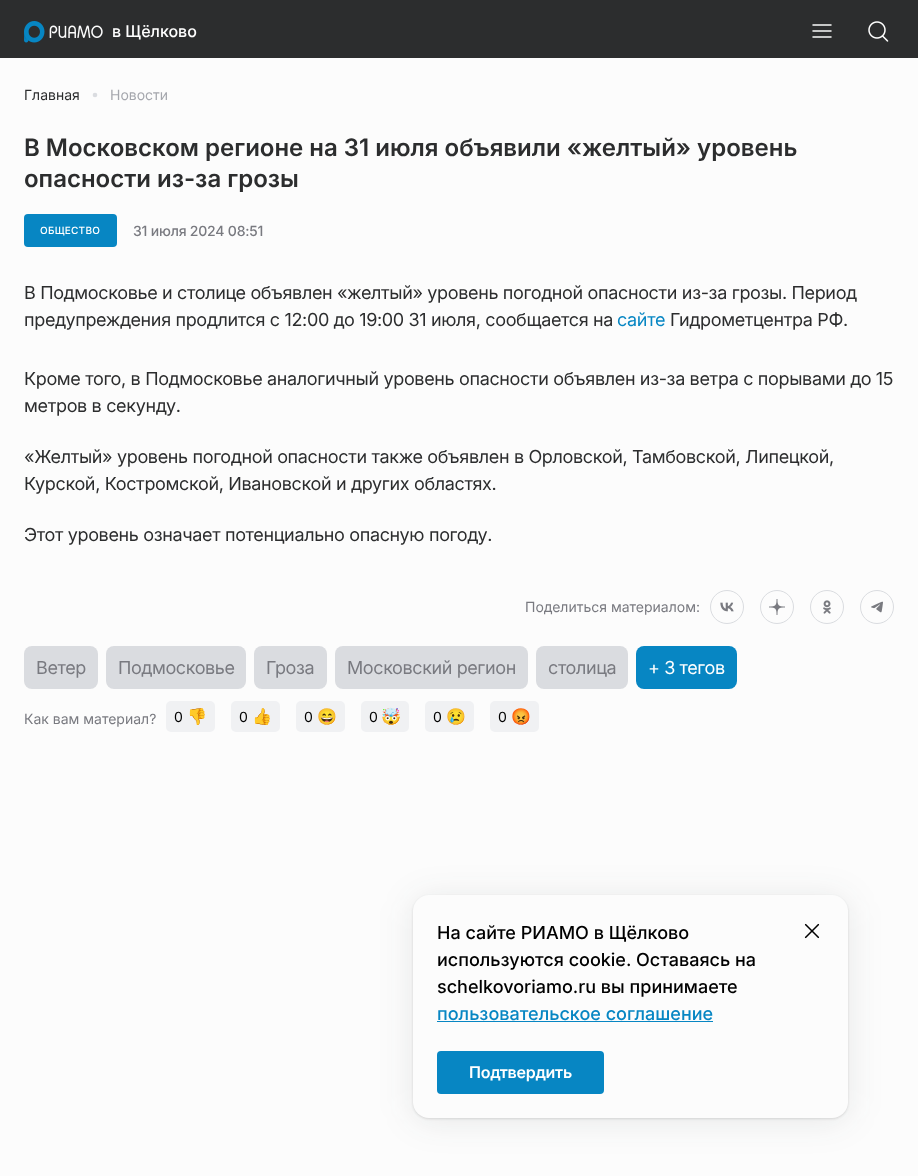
<!DOCTYPE html>
<meta charset="utf-8">
<style>body { margin: 0 } canvas { display: block }</style>
<canvas id="canvas" width="918" height="1176"></canvas>
<img id="img1" src="img_01.png" hidden>
<img id="img2" src="img_02.png" hidden>
<img id="img3" src="img_03.png" hidden>
<img id="img4" src="img_04.png" hidden>
<img id="img5" src="img_05.png" hidden>
<img id="img6" src="img_06.png" hidden>
<img id="img7" src="img_07.png" hidden>
<img id="img8" src="img_08.png" hidden>
<script>
window.onload = function () {
	const canvas = document.getElementById("canvas");
	const ctx = canvas.getContext("2d");
	ctx.miterLimit = 4;
	ctx.fontKerning = "normal";
	function txt(s, x, y) {
		ctx.fillText(s, x, y);
	}
	function fill(x, y, w, h) {
		ctx.fillRect(x, y, w, h);
	}
	function round(x, y, w, h, r) {
		ctx.beginPath();
		ctx.roundRect(x, y, w, h, r);
		ctx.fill();
	}
	function img(id, x, y, w, h) {
		ctx.drawImage(document.getElementById(id), x, y, w, h);
	}

	ctx.fillStyle = "#FCFCFC";
	fill(0, 0, 918, 1176);
	ctx.fillStyle = "#2C2D2E";
	fill(0, 0, 918, 58);
	img("img1", 24, 21, 79, 22);
	img("img2", 812, 24, 20, 14);
	img("img3", 868, 21, 21, 21);
	ctx.fillStyle = "#DADCE0";
	ctx.beginPath();
	ctx.arc(95, 95, 2.3, 0, Math.PI * 2);
	ctx.fill();
	ctx.fillStyle = "#0786C3";
	round(24, 214, 93, 33, 4);
	ctx.beginPath();
	ctx.arc(727, 607, 16.5, 0, Math.PI * 2);
	ctx.strokeStyle = "#DADCE0";
	ctx.stroke();
	img("img4", 720, 602, 14, 10);
	ctx.beginPath();
	ctx.arc(777, 607, 16.5, 0, Math.PI * 2);
	ctx.stroke();
	img("img5", 769, 599, 16, 16);
	ctx.beginPath();
	ctx.arc(827, 607, 16.5, 0, Math.PI * 2);
	ctx.stroke();
	img("img6", 823, 600, 8, 14);
	ctx.beginPath();
	ctx.arc(877, 607, 16.5, 0, Math.PI * 2);
	ctx.stroke();
	img("img7", 871, 601, 12, 12);
	ctx.fillStyle = "#DADCE0";
	round(24, 646, 74, 43, 8);
	round(106, 646, 140, 43, 8);
	round(254, 646, 73, 43, 8);
	round(335, 646, 193, 43, 8);
	round(536, 646, 92, 43, 8);
	ctx.fillStyle = "#0786C3";
	round(636, 646, 101, 43, 8);
	ctx.fillStyle = "#F0F1F3";
	round(166, 701, 49, 31, 5);
	round(231, 701, 49, 31, 5);
	round(296, 701, 49, 31, 5);
	round(361, 701, 48, 31, 5);
	round(425, 701, 49, 31, 5);
	round(490, 701, 49, 31, 5);
	ctx.fillStyle = "rgba(44, 45, 46, 0.14)";
	ctx.filter = "blur(1px)";
	ctx.beginPath();
	ctx.roundRect(413, 896, 435, 223, 16);
	ctx.fill();
	ctx.filter = "none";
	ctx.fillStyle = "rgba(44, 45, 46, 0.1)";
	ctx.filter = "blur(17px)";
	ctx.beginPath();
	ctx.roundRect(413, 898, 435, 223, 16);
	ctx.fill();
	ctx.filter = "none";
	ctx.fillStyle = "#FCFCFC";
	round(413, 895, 435, 223, 16);
	ctx.fillStyle = "#0786C3";
	fill(437, 1021, 276, 1);
	img("img8", 804, 923, 16, 16);
	round(437, 1051, 167, 43, 4);
	ctx.font = "500 16px Inter";
	ctx.fillStyle = "#FFFFFF";
	txt("в Щёлково", 112, 37);
	ctx.font = "14px Inter";
	ctx.fillStyle = "#2C2D2E";
	txt("Главная", 24, 100);
	ctx.fillStyle = "#A5A7AD";
	txt("Новости", 110, 100);
	ctx.font = "600 24px Inter";
	ctx.fillStyle = "#2C2D2E";
	txt("В Московском регионе на 31 июля объявили «желтый» уровень", 24, 156);
	txt("опасности из-за грозы", 24, 187);
	ctx.letterSpacing = "0.25px";
	ctx.font = "500 10px Inter";
	ctx.fillStyle = "#FFFFFF";
	txt("ОБЩЕСТВО", 40, 234);
	ctx.letterSpacing = "-0.2px";
	ctx.font = "500 14px Inter";
	ctx.fillStyle = "#797A80";
	txt("31 июля 2024 08:51", 133, 236);
	ctx.letterSpacing = "-0.35px";
	ctx.font = "18px Inter";
	ctx.fillStyle = "#2C2D2E";
	txt("В Подмосковье и столице объявлен «желтый» уровень погодной опасности из-за грозы. Период", 24, 299);
	txt("предупреждения продлится с 12:00 до 19:00 31 июля, сообщается на", 24, 326);
	ctx.fillStyle = "#0786C3";
	txt("сайте", 617, 326);
	ctx.fillStyle = "#2C2D2E";
	txt("Гидрометцентра РФ.", 670, 326);
	txt("Кроме того, в Подмосковье аналогичный уровень опасности объявлен из-за ветра с порывами до 15", 24, 385);
	txt("метров в секунду.", 24, 412);
	txt("«Желтый» уровень погодной опасности также объявлен в Орловской, Тамбовской, Липецкой,", 24, 463);
	txt("Курской, Костромской, Ивановской и других областях.", 24, 490);
	txt("Этот уровень означает потенциально опасную погоду.", 24, 541);
	ctx.letterSpacing = "0px";
	ctx.font = "14px Inter";
	ctx.fillStyle = "#797A80";
	txt("Поделиться материалом:", 525, 612);
	ctx.letterSpacing = "-0.4px";
	ctx.font = "18px Inter";
	txt("Ветер", 36, 674);
	txt("Подмосковье", 118, 674);
	txt("Гроза", 266, 674);
	txt("Московский регион", 347, 674);
	txt("столица", 548, 674);
	ctx.fillStyle = "#FFFFFF";
	txt("+ 3 тегов", 648, 674);
	ctx.letterSpacing = "0px";
	ctx.font = "14px Inter";
	ctx.fillStyle = "#797A80";
	txt("Как вам материал?", 24, 724);
	ctx.fillStyle = "#000000";
	txt("0", 174, 722);
	ctx.font = "16px Noto Color Emoji";
	txt("👎", 187, 722);
	ctx.font = "14px Inter";
	txt("0", 239, 722);
	ctx.font = "16px Noto Color Emoji";
	txt("👍", 252, 722);
	ctx.font = "14px Inter";
	txt("0", 304, 722);
	ctx.font = "16px Noto Color Emoji";
	txt("😄", 317, 722);
	ctx.font = "14px Inter";
	txt("0", 369, 722);
	ctx.font = "16px Noto Color Emoji";
	txt("🤯", 381, 722);
	ctx.font = "14px Inter";
	txt("0", 433, 722);
	ctx.font = "16px Noto Color Emoji";
	txt("😢", 446, 722);
	ctx.font = "14px Inter";
	txt("0", 498, 722);
	ctx.font = "16px Noto Color Emoji";
	txt("😡", 511, 722);
	ctx.font = "500 18px Inter";
	txt("На сайте РИАМО в Щёлково", 437, 939);
	txt("используются cookie. Оставаясь на", 437, 966);
	txt("schelkovoriamo.ru вы принимаете", 437, 993);
	ctx.fillStyle = "#0786C3";
	txt("пользовательское соглашение", 437, 1020);
	ctx.letterSpacing = "-0.25px";
	ctx.font = "600 16px Inter";
	ctx.fillStyle = "#FFFFFF";
	txt("Подтвердить", 469, 1078);
};
</script>
